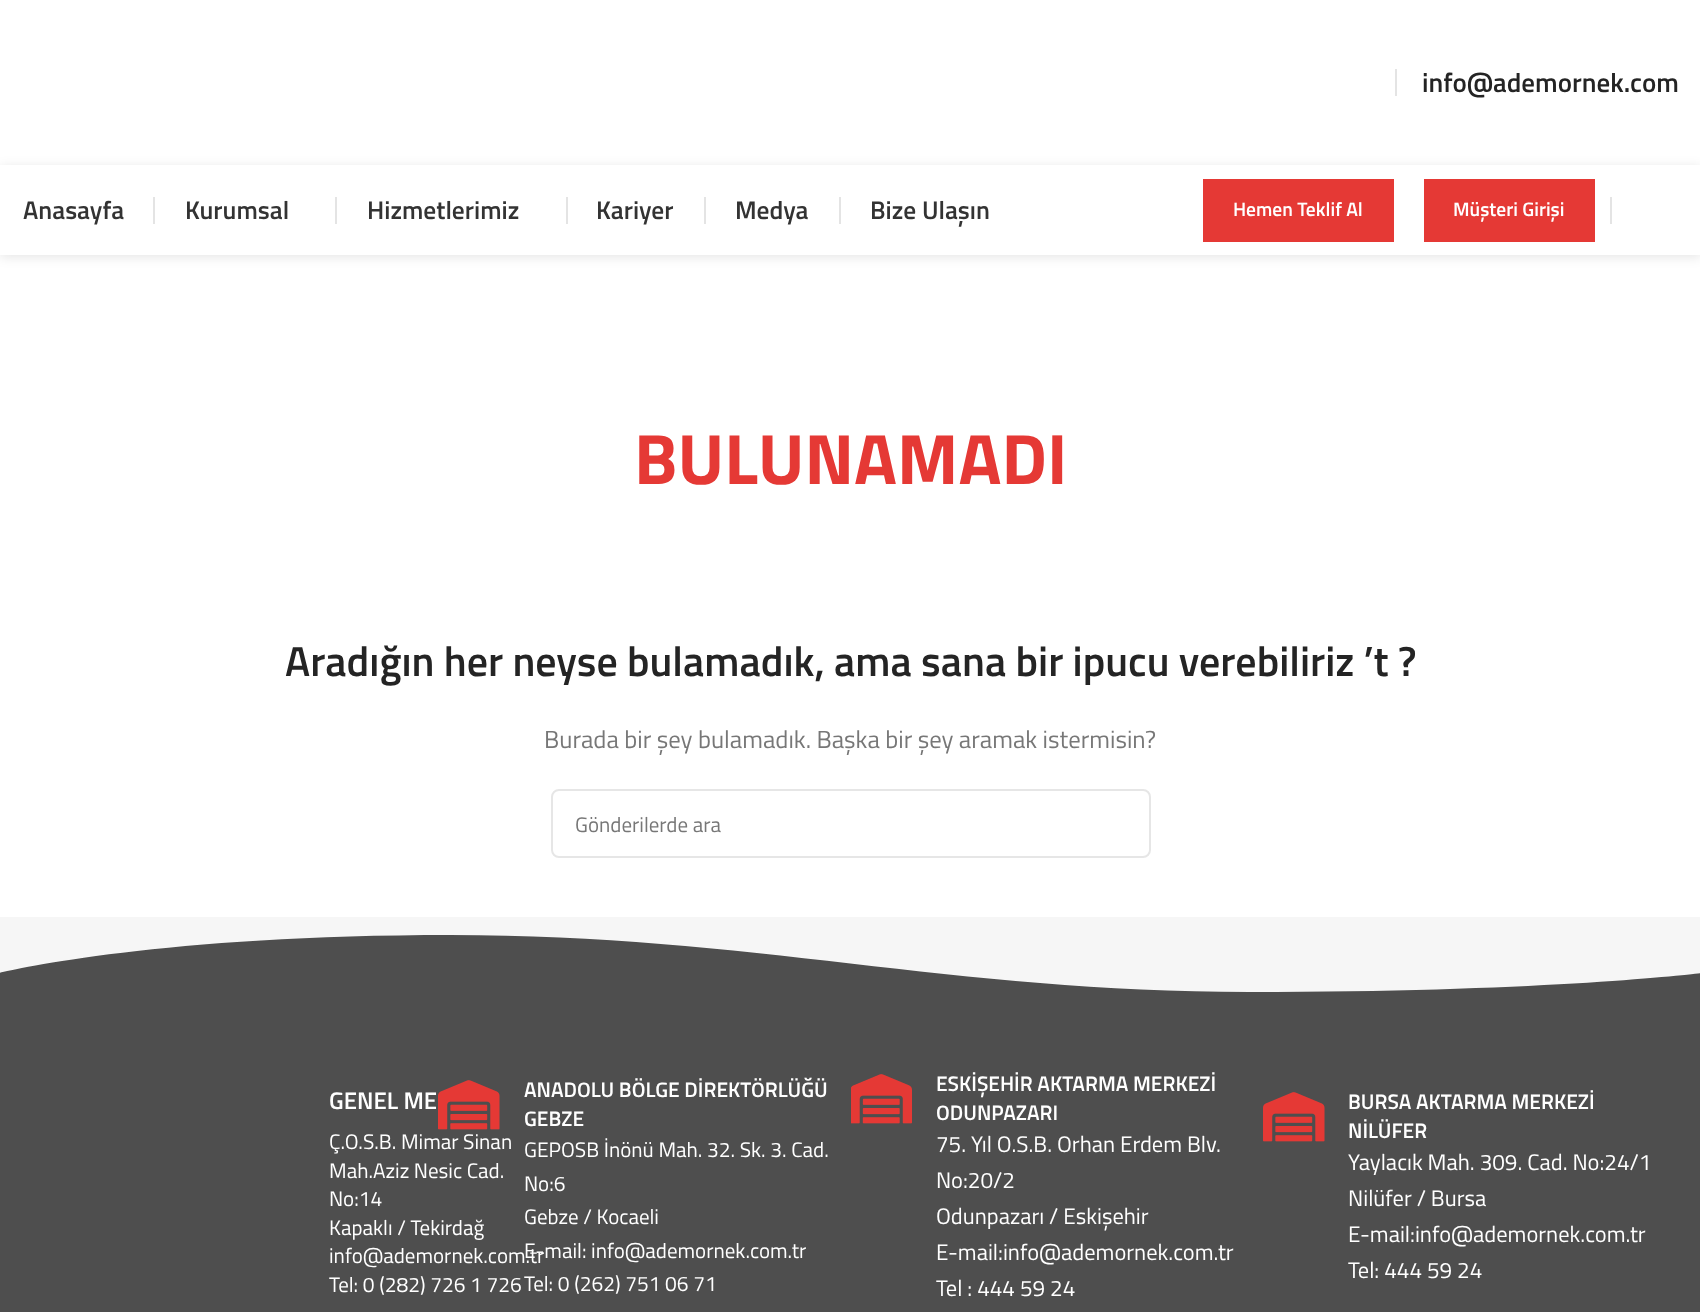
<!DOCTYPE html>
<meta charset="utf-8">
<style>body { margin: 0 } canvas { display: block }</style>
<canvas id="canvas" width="1700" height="1312"></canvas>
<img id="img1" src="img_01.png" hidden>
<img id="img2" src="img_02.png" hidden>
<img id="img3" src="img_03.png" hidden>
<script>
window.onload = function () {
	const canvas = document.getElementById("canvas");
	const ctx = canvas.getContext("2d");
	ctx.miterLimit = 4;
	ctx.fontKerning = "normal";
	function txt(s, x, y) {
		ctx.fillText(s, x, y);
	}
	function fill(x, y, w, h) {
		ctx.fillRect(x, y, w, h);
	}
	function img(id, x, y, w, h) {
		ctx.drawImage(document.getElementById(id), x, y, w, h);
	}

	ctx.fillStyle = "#FFFFFF";
	fill(0, 0, 1700, 1312);
	ctx.fillStyle = "#E4E4E4";
	fill(1395, 69, 2, 27);
	ctx.save();
	ctx.beginPath();
	ctx.moveTo(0, 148);
	ctx.lineTo(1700, 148);
	ctx.lineTo(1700, 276);
	ctx.lineTo(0, 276);
	ctx.closePath();
	ctx.moveTo(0, 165);
	ctx.lineTo(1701, 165);
	ctx.lineTo(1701, 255);
	ctx.lineTo(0, 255);
	ctx.closePath();
	ctx.clip("evenodd");
	ctx.fillStyle = "rgba(0, 0, 0, 0.1)";
	ctx.filter = "blur(6px)";
	ctx.beginPath();
	ctx.rect(0, 167, 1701, 90);
	ctx.fill();
	ctx.filter = "none";
	ctx.restore();
	fill(153, 197, 2, 27);
	fill(335, 197, 2, 27);
	fill(566, 197, 2, 27);
	fill(704, 197, 2, 27);
	fill(839, 197, 2, 27);
	ctx.fillStyle = "#E53935";
	fill(1203, 179, 191, 63);
	fill(1424, 179, 171, 63);
	ctx.fillStyle = "#E4E4E4";
	fill(1610, 197, 2, 27);
	ctx.beginPath();
	ctx.roundRect(552, 790, 598, 67, 7);
	ctx.strokeStyle = "#E6E6E6";
	ctx.lineWidth = 2;
	ctx.stroke();
	ctx.fillStyle = "#4E4E4E";
	fill(0, 935, 1700, 377);
	ctx.save();
	ctx.beginPath();
	ctx.rect(0, 917, 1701, 75);
	ctx.clip();
	ctx.fillStyle = "#F6F6F6";
	ctx.beginPath();
	ctx.moveTo(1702, 973);
	ctx.bezierCurveTo(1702, 973, 1552, 992, 1250, 992);
	ctx.bezierCurveTo(948, 992, 753, 935, 451, 935);
	ctx.bezierCurveTo(149, 935, -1, 973, -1, 973);
	ctx.lineTo(-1, 916);
	ctx.lineTo(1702, 916);
	ctx.closePath();
	ctx.fill();
	ctx.restore();
	img("img1", 438, 1080, 62, 50);
	img("img2", 851, 1074, 61, 50);
	img("img3", 1263, 1092, 62, 50);
	ctx.font = "600 27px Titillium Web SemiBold";
	ctx.fillStyle = "#242424";
	txt("info@ademornek.com", 1422, 92);
	ctx.font = "600 25.5px Titillium Web SemiBold";
	ctx.fillStyle = "#333333";
	txt("Anasayfa", 23, 219);
	txt("Kurumsal", 185, 219);
	txt("Hizmetlerimiz", 367, 219);
	txt("Kariyer", 596, 219);
	txt("Medya", 735, 219);
	txt("Bize Ulaşın", 870, 219);
	ctx.font = "600 19.5px Titillium Web SemiBold";
	ctx.fillStyle = "#FFFFFF";
	txt("Hemen Teklif Al", 1233, 216);
	txt("Müşteri Girişi", 1453, 216);
	ctx.font = "bold 71.5px Titillium Web";
	ctx.fillStyle = "#E53935";
	txt("BULUNAMADI", 634, 484);
	ctx.font = "600 42px Titillium Web SemiBold";
	ctx.fillStyle = "#242424";
	txt("Aradığın her neyse bulamadık, ama sana bir ipucu verebiliriz ’t ?", 285, 676);
	ctx.font = "24.75px Titillium Web";
	ctx.fillStyle = "#777777";
	txt("Burada bir şey bulamadık. Başka bir şey aramak istermisin?", 544, 748);
	ctx.font = "21px Titillium Web";
	txt("Gönderilerde ara", 575, 832);
	ctx.font = "600 24px Titillium Web SemiBold";
	ctx.fillStyle = "#FFFFFF";
	txt("GENEL ME", 329, 1109);
	ctx.font = "21px Titillium Web";
	txt("Ç.O.S.B. Mimar Sinan", 329, 1149);
	txt("Mah.Aziz Nesic Cad.", 329, 1178);
	txt("No:14", 329, 1206);
	txt("Kapaklı / Tekirdağ", 329, 1235);
	txt("info@ademornek.com.tr", 329, 1263);
	txt("Tel: 0 (282) 726 1 726", 329, 1292);
	ctx.font = "600 21px Titillium Web SemiBold";
	txt("ANADOLU BÖLGE DİREKTÖRLÜĞÜ", 524, 1097);
	txt("GEBZE", 524, 1126);
	ctx.font = "21px Titillium Web";
	txt("GEPOSB İnönü Mah. 32. Sk. 3. Cad.", 524, 1157);
	txt("No:6", 524, 1191);
	txt("Gebze / Kocaeli", 524, 1224);
	txt("E-mail: info@ademornek.com.tr", 524, 1258);
	txt("Tel: 0 (262) 751 06 71", 524, 1291);
	ctx.font = "600 21px Titillium Web SemiBold";
	txt("ESKİŞEHİR AKTARMA MERKEZİ", 936, 1091);
	txt("ODUNPAZARI", 936, 1120);
	ctx.font = "22.5px Titillium Web";
	txt("75. Yıl O.S.B. Orhan Erdem Blv.", 936, 1152);
	txt("No:20/2", 936, 1188);
	txt("Odunpazarı / Eskişehir", 936, 1224);
	txt("E-mail:info@ademornek.com.tr", 936, 1260);
	txt("Tel : 444 59 24", 936, 1296);
	ctx.font = "600 21px Titillium Web SemiBold";
	txt("BURSA AKTARMA MERKEZİ", 1348, 1109);
	txt("NİLÜFER", 1348, 1138);
	ctx.font = "22.5px Titillium Web";
	txt("Yaylacık Mah. 309. Cad. No:24/1", 1348, 1170);
	txt("Nilüfer / Bursa", 1348, 1206);
	txt("E-mail:info@ademornek.com.tr", 1348, 1242);
	txt("Tel: 444 59 24", 1348, 1278);
};
</script>
